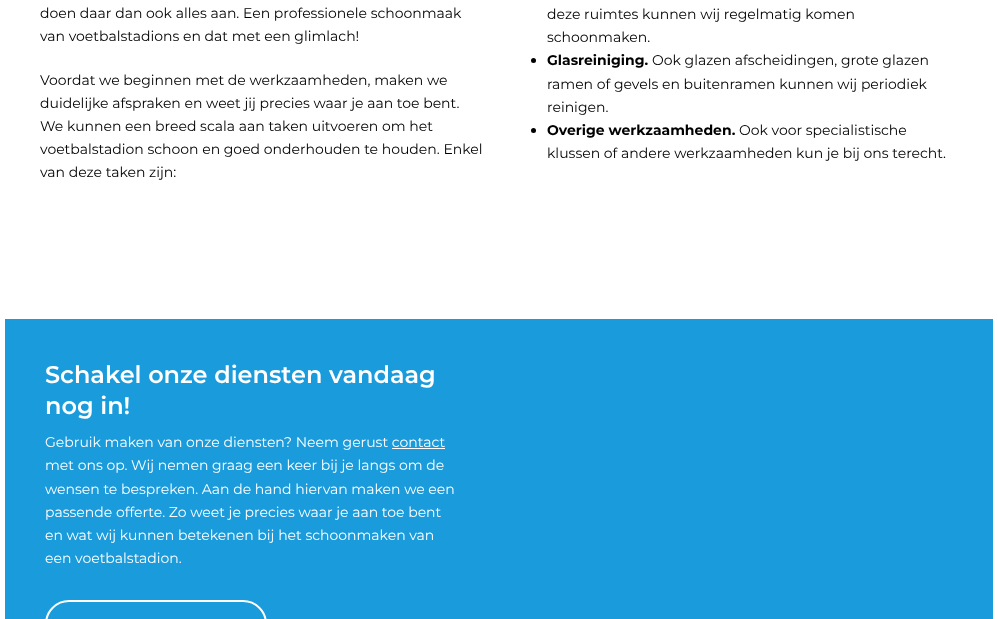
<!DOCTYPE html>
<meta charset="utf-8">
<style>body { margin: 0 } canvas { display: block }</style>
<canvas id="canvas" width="998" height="619"></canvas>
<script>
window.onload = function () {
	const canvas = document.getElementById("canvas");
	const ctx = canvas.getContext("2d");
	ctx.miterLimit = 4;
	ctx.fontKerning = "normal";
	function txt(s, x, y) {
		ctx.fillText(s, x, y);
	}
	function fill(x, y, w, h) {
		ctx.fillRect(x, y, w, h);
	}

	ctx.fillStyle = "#FFFFFF";
	fill(0, 0, 998, 619);
	ctx.fillStyle = "#000000";
	ctx.beginPath();
	ctx.arc(533.5, 60.5, 2.5, 0, Math.PI * 2);
	ctx.fill();
	ctx.beginPath();
	ctx.arc(533.5, 130.5, 2.5, 0, Math.PI * 2);
	ctx.fill();
	ctx.fillStyle = "#1A9BDB";
	fill(5, 319, 988, 300);
	ctx.fillStyle = "#FFFFFF";
	fill(392, 448, 53, 1);
	ctx.beginPath();
	ctx.roundRect(46, 601, 220, 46, 26);
	ctx.strokeStyle = "#FFFFFF";
	ctx.lineWidth = 2;
	ctx.stroke();
	ctx.font = "14px Montserrat";
	ctx.fillStyle = "#000000";
	txt("doen daar dan ook alles aan. Een professionele schoonmaak", 40, 18);
	txt("van voetbalstadions en dat met een glimlach!", 40, 41);
	txt("Voordat we beginnen met de werkzaamheden, maken we", 40, 85);
	txt("duidelijke afspraken en weet jij precies waar je aan toe bent.", 40, 108);
	txt("We kunnen een breed scala aan taken uitvoeren om het", 40, 131);
	txt("voetbalstadion schoon en goed onderhouden te houden. Enkel", 40, 154);
	txt("van deze taken zijn:", 40, 177);
	txt("deze ruimtes kunnen wij regelmatig komen", 547, 19);
	txt("schoonmaken.", 547, 42);
	ctx.font = "bold 14px Montserrat";
	txt("Glasreiniging.", 547, 65);
	ctx.font = "14px Montserrat";
	txt("Ook glazen afscheidingen, grote glazen", 652, 65);
	txt("ramen of gevels en buitenramen kunnen wij periodiek", 547, 89);
	txt("reinigen.", 547, 112);
	ctx.font = "bold 14px Montserrat";
	txt("Overige werkzaamheden.", 547, 135);
	ctx.font = "14px Montserrat";
	txt("Ook voor specialistische", 739, 135);
	txt("klussen of andere werkzaamheden kun je bij ons terecht.", 547, 158);
	ctx.font = "600 24px Montserrat";
	ctx.fillStyle = "#FFFFFF";
	txt("Schakel onze diensten vandaag", 45, 383);
	txt("nog in!", 45, 414);
	ctx.font = "14px Montserrat";
	txt("Gebruik maken van onze diensten? Neem gerust contact", 45, 447);
	txt("met ons op. Wij nemen graag een keer bij je langs om de", 45, 470);
	txt("wensen te bespreken. Aan de hand hiervan maken we een", 45, 494);
	txt("passende offerte. Zo weet je precies waar je aan toe bent", 45, 517);
	txt("en wat wij kunnen betekenen bij het schoonmaken van", 45, 540);
	txt("een voetbalstadion.", 45, 563);
};
</script>
